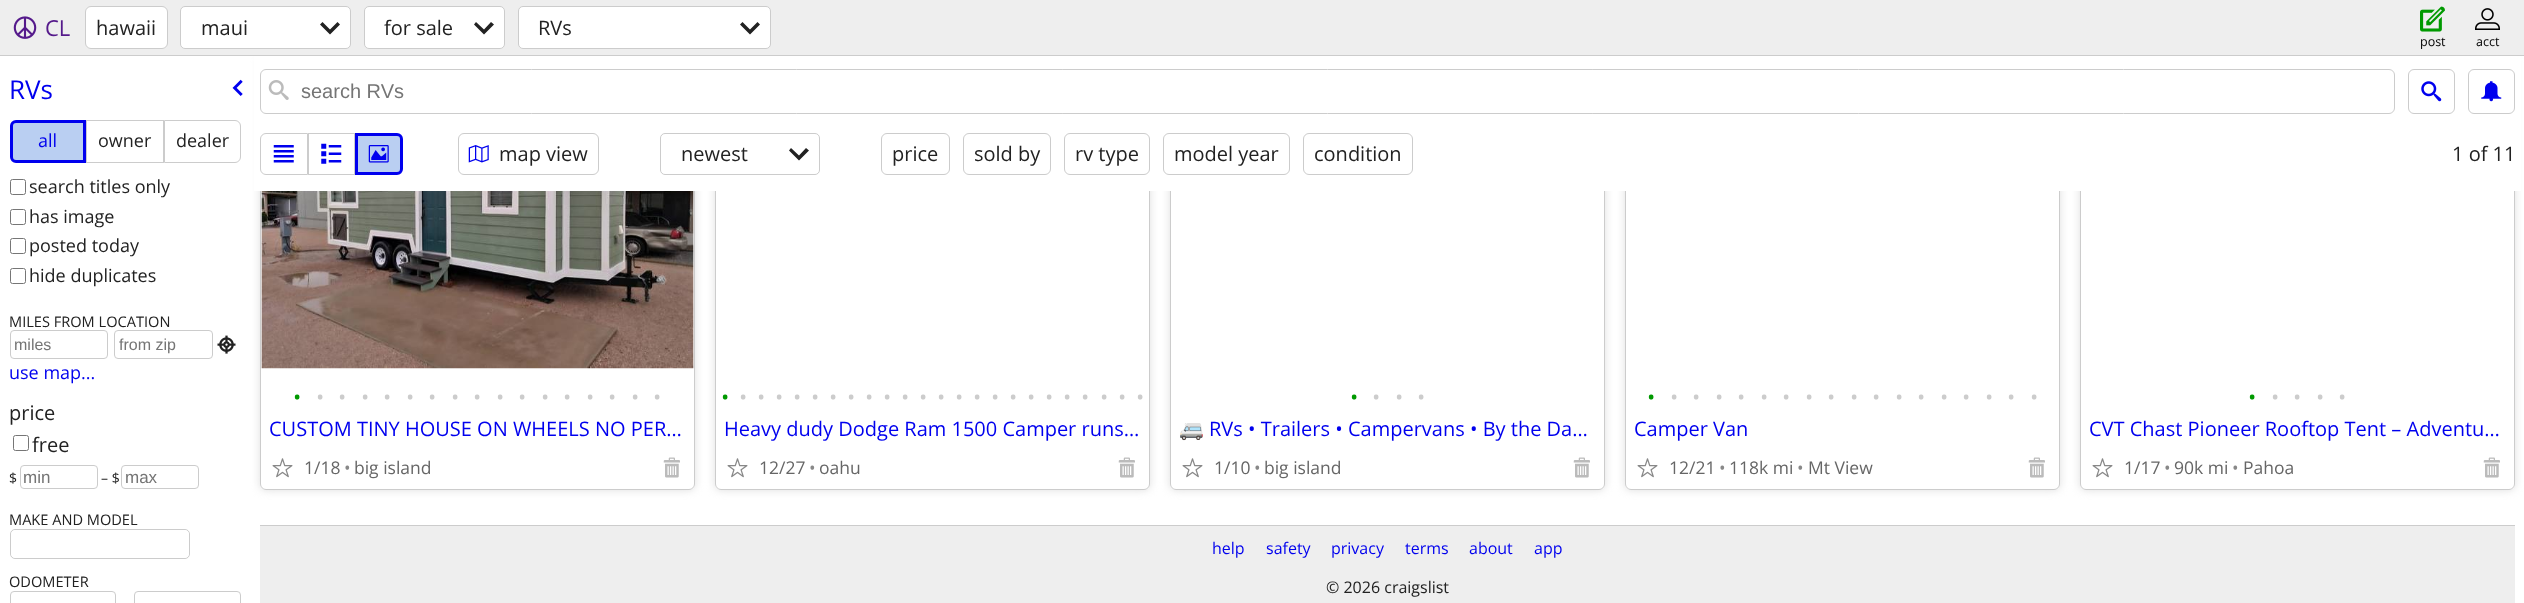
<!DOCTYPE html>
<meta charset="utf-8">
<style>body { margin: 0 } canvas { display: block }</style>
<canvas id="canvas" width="2524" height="603"></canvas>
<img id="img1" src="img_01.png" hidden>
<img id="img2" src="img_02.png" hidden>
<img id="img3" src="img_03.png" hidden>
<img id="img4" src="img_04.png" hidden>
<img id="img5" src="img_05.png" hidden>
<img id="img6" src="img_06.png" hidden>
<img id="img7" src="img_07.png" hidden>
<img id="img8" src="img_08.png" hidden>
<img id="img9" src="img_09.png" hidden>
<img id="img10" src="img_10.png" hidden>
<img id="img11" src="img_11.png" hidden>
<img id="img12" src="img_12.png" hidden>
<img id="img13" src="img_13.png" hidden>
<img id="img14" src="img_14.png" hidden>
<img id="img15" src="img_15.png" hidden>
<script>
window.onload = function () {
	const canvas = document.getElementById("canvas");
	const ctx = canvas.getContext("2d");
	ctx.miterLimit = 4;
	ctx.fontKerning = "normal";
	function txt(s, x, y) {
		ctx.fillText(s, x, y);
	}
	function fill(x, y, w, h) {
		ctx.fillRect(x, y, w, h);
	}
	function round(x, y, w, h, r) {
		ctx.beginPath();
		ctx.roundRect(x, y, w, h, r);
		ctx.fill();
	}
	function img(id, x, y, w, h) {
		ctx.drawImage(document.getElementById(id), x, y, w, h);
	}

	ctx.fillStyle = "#FFFFFF";
	fill(0, 0, 2524, 603);
	ctx.save();
	ctx.beginPath();
	ctx.moveTo(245, 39);
	ctx.lineTo(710, 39);
	ctx.lineTo(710, 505);
	ctx.lineTo(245, 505);
	ctx.closePath();
	ctx.moveTo(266, 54);
	ctx.lineTo(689, 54);
	ctx.bezierCurveTo(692.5, 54, 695, 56.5, 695, 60);
	ctx.lineTo(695, 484);
	ctx.bezierCurveTo(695, 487.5, 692.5, 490, 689, 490);
	ctx.lineTo(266, 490);
	ctx.bezierCurveTo(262.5, 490, 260, 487.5, 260, 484);
	ctx.lineTo(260, 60);
	ctx.bezierCurveTo(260, 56.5, 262.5, 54, 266, 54);
	ctx.closePath();
	ctx.clip("evenodd");
	ctx.fillStyle = "#DDDDDD";
	ctx.filter = "blur(4.5px)";
	ctx.beginPath();
	ctx.roundRect(260, 54, 435, 436, 6);
	ctx.fill();
	ctx.filter = "none";
	ctx.restore();
	ctx.beginPath();
	ctx.roundRect(260.5, 54.5, 434, 435, 5.5);
	ctx.strokeStyle = "#CCCCCC";
	ctx.stroke();
	ctx.save();
	ctx.beginPath();
	ctx.moveTo(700, 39);
	ctx.lineTo(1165, 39);
	ctx.lineTo(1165, 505);
	ctx.lineTo(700, 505);
	ctx.closePath();
	ctx.moveTo(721, 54);
	ctx.lineTo(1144, 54);
	ctx.bezierCurveTo(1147.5, 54, 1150, 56.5, 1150, 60);
	ctx.lineTo(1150, 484);
	ctx.bezierCurveTo(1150, 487.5, 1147.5, 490, 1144, 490);
	ctx.lineTo(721, 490);
	ctx.bezierCurveTo(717.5, 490, 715, 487.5, 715, 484);
	ctx.lineTo(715, 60);
	ctx.bezierCurveTo(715, 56.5, 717.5, 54, 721, 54);
	ctx.closePath();
	ctx.clip("evenodd");
	ctx.fillStyle = "#DDDDDD";
	ctx.filter = "blur(4.5px)";
	ctx.beginPath();
	ctx.roundRect(715, 54, 435, 436, 6);
	ctx.fill();
	ctx.filter = "none";
	ctx.restore();
	ctx.beginPath();
	ctx.roundRect(715.5, 54.5, 434, 435, 5.5);
	ctx.stroke();
	ctx.save();
	ctx.beginPath();
	ctx.moveTo(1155, 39);
	ctx.lineTo(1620, 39);
	ctx.lineTo(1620, 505);
	ctx.lineTo(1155, 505);
	ctx.closePath();
	ctx.moveTo(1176, 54);
	ctx.lineTo(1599, 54);
	ctx.bezierCurveTo(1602.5, 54, 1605, 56.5, 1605, 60);
	ctx.lineTo(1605, 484);
	ctx.bezierCurveTo(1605, 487.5, 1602.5, 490, 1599, 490);
	ctx.lineTo(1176, 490);
	ctx.bezierCurveTo(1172.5, 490, 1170, 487.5, 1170, 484);
	ctx.lineTo(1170, 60);
	ctx.bezierCurveTo(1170, 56.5, 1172.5, 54, 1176, 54);
	ctx.closePath();
	ctx.clip("evenodd");
	ctx.fillStyle = "#DDDDDD";
	ctx.filter = "blur(4.5px)";
	ctx.beginPath();
	ctx.roundRect(1170, 54, 435, 436, 6);
	ctx.fill();
	ctx.filter = "none";
	ctx.restore();
	ctx.beginPath();
	ctx.roundRect(1170.5, 54.5, 434, 435, 5.5);
	ctx.stroke();
	ctx.save();
	ctx.beginPath();
	ctx.moveTo(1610, 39);
	ctx.lineTo(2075, 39);
	ctx.lineTo(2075, 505);
	ctx.lineTo(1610, 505);
	ctx.closePath();
	ctx.moveTo(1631, 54);
	ctx.lineTo(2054, 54);
	ctx.bezierCurveTo(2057.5, 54, 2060, 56.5, 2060, 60);
	ctx.lineTo(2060, 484);
	ctx.bezierCurveTo(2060, 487.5, 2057.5, 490, 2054, 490);
	ctx.lineTo(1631, 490);
	ctx.bezierCurveTo(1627.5, 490, 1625, 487.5, 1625, 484);
	ctx.lineTo(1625, 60);
	ctx.bezierCurveTo(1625, 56.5, 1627.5, 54, 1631, 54);
	ctx.closePath();
	ctx.clip("evenodd");
	ctx.fillStyle = "#DDDDDD";
	ctx.filter = "blur(4.5px)";
	ctx.beginPath();
	ctx.roundRect(1625, 54, 435, 436, 6);
	ctx.fill();
	ctx.filter = "none";
	ctx.restore();
	ctx.beginPath();
	ctx.roundRect(1625.5, 54.5, 434, 435, 5.5);
	ctx.stroke();
	ctx.save();
	ctx.beginPath();
	ctx.moveTo(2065, 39);
	ctx.lineTo(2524, 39);
	ctx.lineTo(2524, 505);
	ctx.lineTo(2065, 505);
	ctx.closePath();
	ctx.moveTo(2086, 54);
	ctx.lineTo(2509, 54);
	ctx.bezierCurveTo(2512.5, 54, 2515, 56.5, 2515, 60);
	ctx.lineTo(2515, 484);
	ctx.bezierCurveTo(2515, 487.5, 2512.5, 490, 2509, 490);
	ctx.lineTo(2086, 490);
	ctx.bezierCurveTo(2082.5, 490, 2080, 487.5, 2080, 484);
	ctx.lineTo(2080, 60);
	ctx.bezierCurveTo(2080, 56.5, 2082.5, 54, 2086, 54);
	ctx.closePath();
	ctx.clip("evenodd");
	ctx.fillStyle = "#DDDDDD";
	ctx.filter = "blur(4.5px)";
	ctx.beginPath();
	ctx.roundRect(2080, 54, 435, 436, 6);
	ctx.fill();
	ctx.filter = "none";
	ctx.restore();
	ctx.beginPath();
	ctx.roundRect(2080.5, 54.5, 434, 435, 5.5);
	ctx.stroke();
	ctx.fillStyle = "#EEEEEE";
	fill(0, 0, 2524, 55);
	ctx.fillStyle = "#CCCCCC";
	fill(0, 55, 2524, 1);
	img("img1", 13, 16, 24, 23);
	ctx.fillStyle = "#FFFFFF";
	ctx.beginPath();
	ctx.roundRect(85.5, 6.5, 82, 42, 5.5);
	ctx.fill();
	ctx.stroke();
	ctx.beginPath();
	ctx.roundRect(180.5, 6.5, 170, 42, 4.5);
	ctx.fill();
	ctx.stroke();
	ctx.fillStyle = "#222222";
	ctx.beginPath();
	ctx.moveTo(340, 24.5);
	ctx.lineTo(337.5, 22);
	ctx.lineTo(330, 29.5);
	ctx.lineTo(322.5, 22);
	ctx.lineTo(320, 24.5);
	ctx.lineTo(330, 34.5);
	ctx.closePath();
	ctx.fill();
	ctx.fillStyle = "#FFFFFF";
	ctx.beginPath();
	ctx.roundRect(364.5, 6.5, 140, 42, 4.5);
	ctx.fill();
	ctx.stroke();
	ctx.fillStyle = "#222222";
	ctx.beginPath();
	ctx.moveTo(494, 24.5);
	ctx.lineTo(491, 22);
	ctx.lineTo(484, 29.5);
	ctx.lineTo(476, 22);
	ctx.lineTo(474, 24.5);
	ctx.lineTo(484, 34.5);
	ctx.closePath();
	ctx.fill();
	ctx.fillStyle = "#FFFFFF";
	ctx.beginPath();
	ctx.roundRect(518.5, 6.5, 252, 42, 4.5);
	ctx.fill();
	ctx.stroke();
	ctx.fillStyle = "#222222";
	ctx.beginPath();
	ctx.moveTo(760, 24.5);
	ctx.lineTo(757.5, 22);
	ctx.lineTo(750, 29.5);
	ctx.lineTo(742.5, 22);
	ctx.lineTo(740, 24.5);
	ctx.lineTo(750, 34.5);
	ctx.closePath();
	ctx.fill();
	img("img2", 2420, 6, 25, 26);
	img("img3", 2475, 8, 25, 22);
	img("img4", 232, 79, 11, 17);
	ctx.fillStyle = "#BACFF2";
	ctx.beginPath();
	ctx.roundRect(11.5, 121.5, 73, 40, [4.5, 0, 0, 4.5]);
	ctx.fill();
	ctx.strokeStyle = "#0000EE";
	ctx.lineWidth = 3;
	ctx.stroke();
	ctx.strokeStyle = "#CCCCCC";
	ctx.lineWidth = 1;
	ctx.strokeRect(86.5, 120.5, 77, 42);
	ctx.beginPath();
	ctx.roundRect(164.5, 120.5, 76, 42, [0, 5.5, 5.5, 0]);
	ctx.stroke();
	ctx.beginPath();
	ctx.roundRect(10.5, 179.5, 15, 15, 2);
	ctx.strokeStyle = "#767676";
	ctx.stroke();
	ctx.beginPath();
	ctx.roundRect(10.5, 209.5, 15, 15, 2);
	ctx.stroke();
	ctx.beginPath();
	ctx.roundRect(10.5, 238.5, 15, 15, 2);
	ctx.stroke();
	ctx.beginPath();
	ctx.roundRect(10.5, 268.5, 15, 15, 2);
	ctx.stroke();
	ctx.beginPath();
	ctx.roundRect(10.5, 330.5, 97, 28, 3.5);
	ctx.strokeStyle = "#CCCCCC";
	ctx.stroke();
	ctx.beginPath();
	ctx.roundRect(114.5, 330.5, 98, 28, 3.5);
	ctx.stroke();
	img("img5", 217, 335, 19, 19);
	ctx.beginPath();
	ctx.roundRect(13.5, 435.5, 15, 15, 2);
	ctx.strokeStyle = "#767676";
	ctx.stroke();
	ctx.beginPath();
	ctx.roundRect(20.5, 465.5, 77, 23, 3.5);
	ctx.strokeStyle = "#CCCCCC";
	ctx.stroke();
	ctx.beginPath();
	ctx.roundRect(121.5, 465.5, 77, 23, 3.5);
	ctx.stroke();
	ctx.beginPath();
	ctx.roundRect(10.5, 529.5, 179, 29, 4.5);
	ctx.stroke();
	ctx.save();
	ctx.beginPath();
	ctx.roundRect(11, 530, 178, 28, 4);
	ctx.clip();
	ctx.fillStyle = "#FFFFFF";
	round(11, 530, 178, 28, 5);
	ctx.restore();
	ctx.beginPath();
	ctx.roundRect(10.5, 591.5, 105, 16, 3.5);
	ctx.stroke();
	ctx.beginPath();
	ctx.roundRect(134.5, 591.5, 106, 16, 3.5);
	ctx.stroke();
	ctx.fillStyle = "#FFFFFF";
	fill(254, 56, 2267, 135);
	ctx.beginPath();
	ctx.roundRect(260.5, 69.5, 2134, 44, 5.5);
	ctx.stroke();
	img("img6", 268, 80, 21, 20);
	ctx.beginPath();
	ctx.roundRect(2408.5, 69.5, 46, 44, 5.5);
	ctx.stroke();
	img("img7", 2421, 81, 21, 21);
	ctx.beginPath();
	ctx.roundRect(2468.5, 69.5, 46, 44, 5.5);
	ctx.stroke();
	img("img8", 2481, 81, 21, 21);
	ctx.beginPath();
	ctx.roundRect(260.5, 133.5, 47, 41, [5.5, 0, 0, 5.5]);
	ctx.stroke();
	img("img9", 273, 145, 21, 18);
	ctx.strokeRect(308.5, 133.5, 46, 41);
	img("img10", 321, 143, 21, 21);
	ctx.fillStyle = "#BACFF2";
	ctx.beginPath();
	ctx.roundRect(356.5, 134.5, 45, 39, [0, 4.5, 4.5, 0]);
	ctx.fill();
	ctx.strokeStyle = "#0000EE";
	ctx.lineWidth = 3;
	ctx.stroke();
	img("img11", 368, 145, 21, 18);
	ctx.beginPath();
	ctx.roundRect(458.5, 133.5, 140, 41, 5.5);
	ctx.strokeStyle = "#CCCCCC";
	ctx.lineWidth = 1;
	ctx.stroke();
	img("img12", 468, 145, 21, 18);
	ctx.beginPath();
	ctx.roundRect(660.5, 133.5, 159, 41, 4.5);
	ctx.stroke();
	ctx.fillStyle = "#222222";
	ctx.beginPath();
	ctx.moveTo(809, 150.5);
	ctx.lineTo(806, 148);
	ctx.lineTo(799, 155.5);
	ctx.lineTo(791, 148);
	ctx.lineTo(789, 150.5);
	ctx.lineTo(799, 160.5);
	ctx.closePath();
	ctx.fill();
	ctx.beginPath();
	ctx.roundRect(881.5, 133.5, 68, 41, 5.5);
	ctx.stroke();
	ctx.beginPath();
	ctx.roundRect(963.5, 133.5, 87, 41, 5.5);
	ctx.stroke();
	ctx.beginPath();
	ctx.roundRect(1064.5, 133.5, 85, 41, 5.5);
	ctx.stroke();
	ctx.beginPath();
	ctx.roundRect(1163.5, 133.5, 126, 41, 5.5);
	ctx.stroke();
	ctx.beginPath();
	ctx.roundRect(1303.5, 133.5, 109, 41, 5.5);
	ctx.stroke();
	img("img13", 261, 191, 433, 178);
	img("img14", 272, 458, 21, 20);
	img("img15", 663, 457, 17, 21);
	img("img14", 727, 458, 21, 20);
	img("img15", 1118, 457, 17, 21);
	img("img14", 1182, 458, 21, 20);
	img("img15", 1573, 457, 17, 21);
	img("img14", 1637, 458, 21, 20);
	img("img15", 2028, 457, 17, 21);
	img("img14", 2092, 458, 21, 20);
	img("img15", 2483, 457, 17, 21);
	ctx.fillStyle = "#EEEEEE";
	fill(260, 526, 2255, 77);
	ctx.fillStyle = "#CCCCCC";
	fill(260, 525, 2255, 1);
	ctx.font = "22px Open Sans";
	ctx.fillStyle = "#551A8B";
	txt("CL", 45, 36);
	ctx.font = "20px Open Sans";
	ctx.fillStyle = "#222222";
	txt("hawaii", 96, 35);
	txt("maui", 201, 35);
	txt("for sale", 384, 35);
	txt("RVs", 538, 35);
	ctx.font = "12.5px Open Sans";
	ctx.fillStyle = "#000000";
	txt("post", 2420, 46);
	txt("acct", 2476, 46);
	ctx.font = "26px Open Sans";
	ctx.fillStyle = "#0000EE";
	txt("RVs", 9, 99);
	ctx.font = "18px Open Sans";
	txt("all", 38, 147);
	ctx.fillStyle = "#222222";
	txt("owner", 98, 147);
	txt("dealer", 176, 147);
	txt("search titles only", 29, 193);
	txt("has image", 29, 223);
	txt("posted today", 29, 252);
	txt("hide duplicates", 29, 282);
	ctx.font = "14.6px Open Sans";
	txt("MILES FROM LOCATION", 9, 327);
	ctx.font = "16px Liberation Sans";
	ctx.fillStyle = "#757575";
	txt("miles", 14, 350);
	txt("from zip", 119, 350);
	ctx.font = "18px Open Sans";
	ctx.fillStyle = "#0000EE";
	txt("use map...", 9, 379);
	ctx.font = "20px Open Sans";
	ctx.fillStyle = "#222222";
	txt("price", 9, 420);
	txt("free", 32, 452);
	ctx.font = "14px Open Sans";
	txt("$", 9, 483);
	ctx.font = "17px Liberation Sans";
	ctx.fillStyle = "#757575";
	txt("min", 23, 483);
	ctx.font = "14px Open Sans";
	ctx.fillStyle = "#222222";
	txt("– $", 101, 483);
	ctx.font = "17px Liberation Sans";
	ctx.fillStyle = "#757575";
	txt("max", 125, 483);
	ctx.font = "14.6px Open Sans";
	ctx.fillStyle = "#222222";
	txt("MAKE AND MODEL", 9, 525);
	txt("ODOMETER", 9, 587);
	ctx.font = "20px Liberation Sans";
	ctx.fillStyle = "#757575";
	txt("search RVs", 301, 98);
	ctx.font = "20px Open Sans";
	ctx.fillStyle = "#222222";
	txt("map view", 499, 161);
	txt("newest", 681, 161);
	txt("price", 892, 161);
	txt("sold by", 974, 161);
	txt("rv type", 1075, 161);
	txt("model year", 1174, 161);
	txt("condition", 1314, 161);
	txt("1 of 11", 2452, 161);
	ctx.font = "22px Open Sans";
	ctx.fillStyle = "#009900";
	txt("•", 293, 405);
	ctx.fillStyle = "#CCCCCC";
	txt("•", 316, 405);
	txt("•", 338, 405);
	txt("•", 361, 405);
	txt("•", 383, 405);
	txt("•", 406, 405);
	txt("•", 428, 405);
	txt("•", 451, 405);
	txt("•", 473, 405);
	txt("•", 496, 405);
	txt("•", 518, 405);
	txt("•", 541, 405);
	txt("•", 563, 405);
	txt("•", 586, 405);
	txt("•", 608, 405);
	txt("•", 631, 405);
	txt("•", 653, 405);
	ctx.font = "20px Open Sans";
	ctx.fillStyle = "#0000EE";
	txt("CUSTOM TINY HOUSE ON WHEELS NO PER…", 269, 436);
	ctx.font = "17.5px Open Sans";
	ctx.fillStyle = "#666666";
	txt("1/18", 304, 474);
	ctx.fillStyle = "#888888";
	txt("•", 344, 474);
	ctx.fillStyle = "#666666";
	txt("big island", 354, 474);
	ctx.font = "22px Open Sans";
	ctx.fillStyle = "#009900";
	txt("•", 721, 405);
	ctx.fillStyle = "#CCCCCC";
	txt("•", 739, 405);
	txt("•", 757, 405);
	txt("•", 775, 405);
	txt("•", 793, 405);
	txt("•", 811, 405);
	txt("•", 829, 405);
	txt("•", 847, 405);
	txt("•", 865, 405);
	txt("•", 883, 405);
	txt("•", 901, 405);
	txt("•", 919, 405);
	txt("•", 937, 405);
	txt("•", 955, 405);
	txt("•", 973, 405);
	txt("•", 991, 405);
	txt("•", 1009, 405);
	txt("•", 1027, 405);
	txt("•", 1045, 405);
	txt("•", 1063, 405);
	txt("•", 1081, 405);
	txt("•", 1100, 405);
	txt("•", 1118, 405);
	txt("•", 1136, 405);
	ctx.font = "20px Open Sans";
	ctx.fillStyle = "#0000EE";
	txt("Heavy dudy Dodge Ram 1500 Camper runs…", 724, 436);
	ctx.font = "17.5px Open Sans";
	ctx.fillStyle = "#666666";
	txt("12/27", 759, 474);
	ctx.fillStyle = "#888888";
	txt("•", 809, 474);
	ctx.fillStyle = "#666666";
	txt("oahu", 819, 474);
	ctx.font = "22px Open Sans";
	ctx.fillStyle = "#009900";
	txt("•", 1350, 405);
	ctx.fillStyle = "#CCCCCC";
	txt("•", 1372, 405);
	txt("•", 1395, 405);
	txt("•", 1417, 405);
	ctx.font = "20px Noto Color Emoji";
	ctx.fillStyle = "#0000EE";
	txt("🚐", 1179, 436);
	ctx.font = "20px Open Sans";
	txt("RVs • Trailers • Campervans • By the Da…", 1209, 436);
	ctx.font = "17.5px Open Sans";
	ctx.fillStyle = "#666666";
	txt("1/10", 1214, 474);
	ctx.fillStyle = "#888888";
	txt("•", 1254, 474);
	ctx.fillStyle = "#666666";
	txt("big island", 1264, 474);
	ctx.font = "22px Open Sans";
	ctx.fillStyle = "#009900";
	txt("•", 1647, 405);
	ctx.fillStyle = "#CCCCCC";
	txt("•", 1670, 405);
	txt("•", 1692, 405);
	txt("•", 1715, 405);
	txt("•", 1737, 405);
	txt("•", 1760, 405);
	txt("•", 1782, 405);
	txt("•", 1805, 405);
	txt("•", 1827, 405);
	txt("•", 1850, 405);
	txt("•", 1872, 405);
	txt("•", 1895, 405);
	txt("•", 1917, 405);
	txt("•", 1940, 405);
	txt("•", 1962, 405);
	txt("•", 1985, 405);
	txt("•", 2007, 405);
	txt("•", 2030, 405);
	ctx.font = "20px Open Sans";
	ctx.fillStyle = "#0000EE";
	txt("Camper Van", 1634, 436);
	ctx.font = "17.5px Open Sans";
	ctx.fillStyle = "#666666";
	txt("12/21", 1669, 474);
	ctx.fillStyle = "#888888";
	txt("•", 1719, 474);
	ctx.fillStyle = "#666666";
	txt("118k mi", 1729, 474);
	ctx.fillStyle = "#888888";
	txt("•", 1797, 474);
	ctx.fillStyle = "#666666";
	txt("Mt View", 1808, 474);
	ctx.font = "22px Open Sans";
	ctx.fillStyle = "#009900";
	txt("•", 2248, 405);
	ctx.fillStyle = "#CCCCCC";
	txt("•", 2271, 405);
	txt("•", 2293, 405);
	txt("•", 2316, 405);
	txt("•", 2338, 405);
	ctx.font = "20px Open Sans";
	ctx.fillStyle = "#0000EE";
	txt("CVT Chast Pioneer Rooftop Tent – Adventu…", 2089, 436);
	ctx.font = "17.5px Open Sans";
	ctx.fillStyle = "#666666";
	txt("1/17", 2124, 474);
	ctx.fillStyle = "#888888";
	txt("•", 2164, 474);
	ctx.fillStyle = "#666666";
	txt("90k mi", 2174, 474);
	ctx.fillStyle = "#888888";
	txt("•", 2232, 474);
	ctx.fillStyle = "#666666";
	txt("Pahoa", 2243, 474);
	ctx.font = "16px Open Sans";
	ctx.fillStyle = "#0000EE";
	txt("help", 1212, 554);
	txt("safety", 1266, 554);
	txt("privacy", 1331, 554);
	txt("terms", 1405, 554);
	txt("about", 1469, 554);
	txt("app", 1534, 554);
	ctx.fillStyle = "#222222";
	txt("© 2026 craigslist", 1326, 593);
};
</script>
